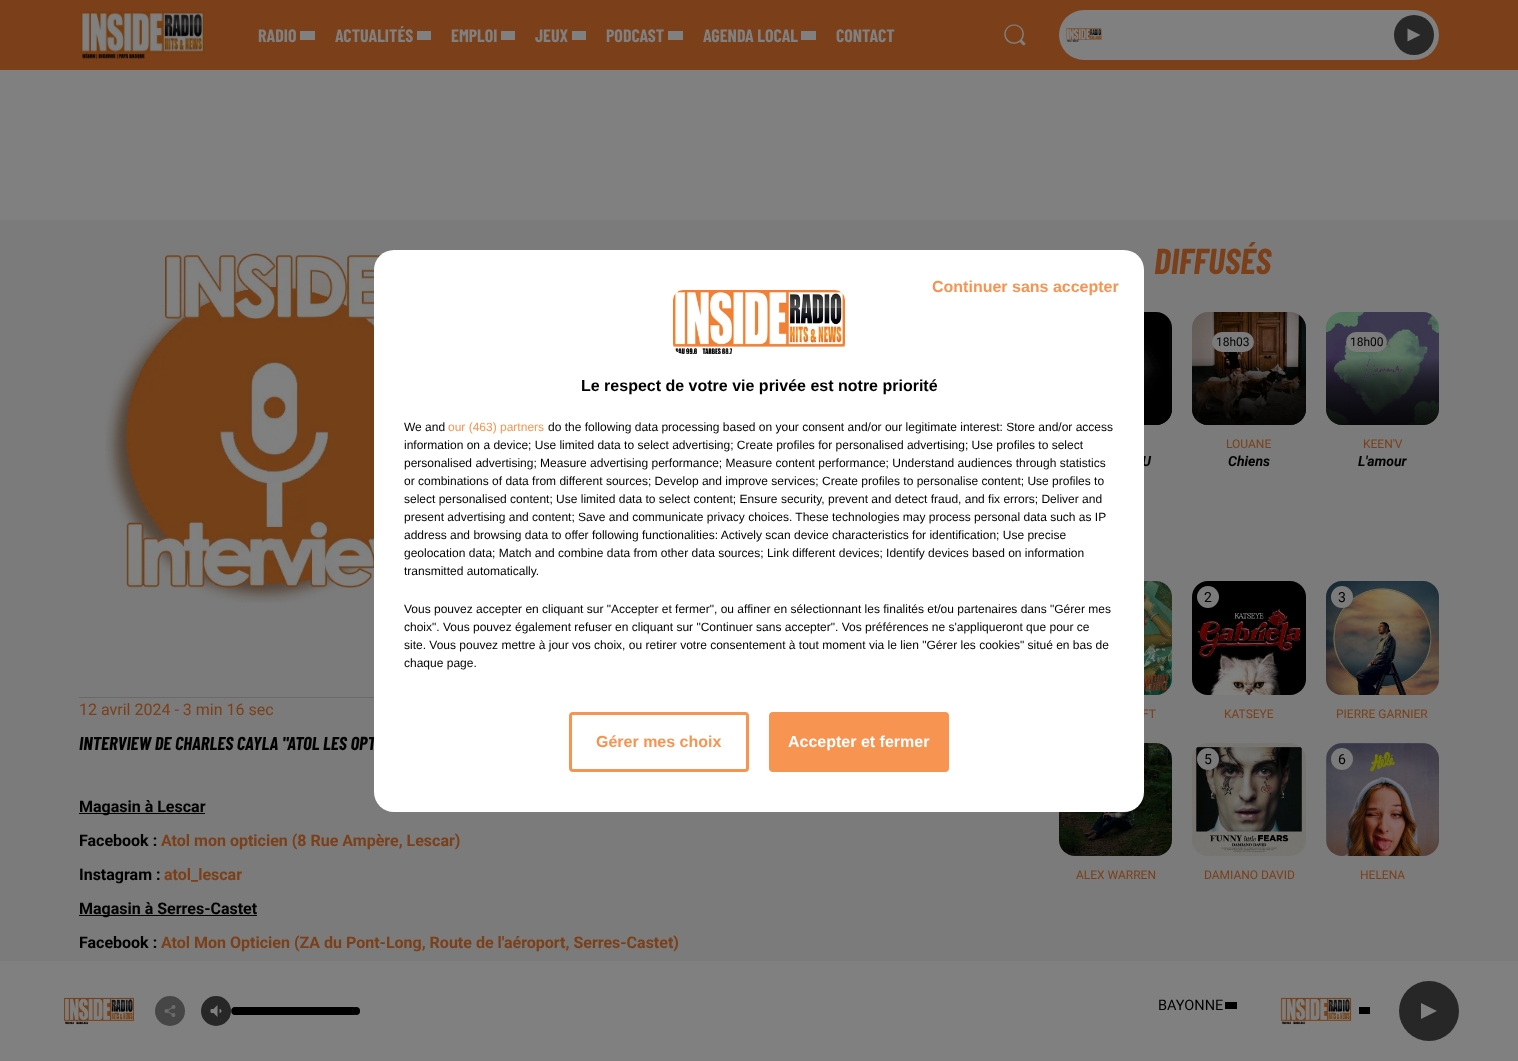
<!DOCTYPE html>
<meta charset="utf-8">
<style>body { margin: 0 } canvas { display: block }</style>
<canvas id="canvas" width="1518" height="1061"></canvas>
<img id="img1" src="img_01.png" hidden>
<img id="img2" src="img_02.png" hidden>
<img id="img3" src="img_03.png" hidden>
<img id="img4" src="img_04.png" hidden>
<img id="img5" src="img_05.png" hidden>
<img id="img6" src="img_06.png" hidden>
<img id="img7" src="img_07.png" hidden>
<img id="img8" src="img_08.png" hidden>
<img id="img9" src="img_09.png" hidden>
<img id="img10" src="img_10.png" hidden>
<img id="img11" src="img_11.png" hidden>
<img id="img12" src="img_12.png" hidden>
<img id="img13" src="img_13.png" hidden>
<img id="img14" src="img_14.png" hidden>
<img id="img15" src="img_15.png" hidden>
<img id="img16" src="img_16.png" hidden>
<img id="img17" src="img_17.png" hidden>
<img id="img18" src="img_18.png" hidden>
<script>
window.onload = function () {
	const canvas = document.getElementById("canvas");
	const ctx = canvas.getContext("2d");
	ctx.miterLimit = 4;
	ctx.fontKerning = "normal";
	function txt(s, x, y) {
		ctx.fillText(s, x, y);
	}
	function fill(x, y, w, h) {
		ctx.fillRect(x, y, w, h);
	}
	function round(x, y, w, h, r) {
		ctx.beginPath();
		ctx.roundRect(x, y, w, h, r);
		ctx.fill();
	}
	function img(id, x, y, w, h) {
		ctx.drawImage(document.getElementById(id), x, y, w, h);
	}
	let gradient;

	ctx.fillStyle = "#7B7B7B";
	fill(0, 0, 1518, 1061);
	ctx.fillStyle = "#7B4019";
	fill(0, 0, 1518, 70);
	img("img1", 80, 11, 125, 49);
	ctx.fillStyle = "#808080";
	fill(300, 31, 15, 9);
	fill(417, 31, 14, 9);
	fill(501, 31, 14, 9);
	fill(572, 31, 14, 9);
	fill(668, 31, 15, 9);
	fill(801, 31, 15, 9);
	img("img2", 1004, 24, 22, 22);
	round(1059, 10, 380, 50, 25);
	img("img3", 1066, 28, 36, 14);
	ctx.fillStyle = "#272727";
	ctx.beginPath();
	ctx.arc(1414, 35, 20, 0, Math.PI * 2);
	ctx.fill();
	ctx.fillStyle = "#808080";
	ctx.beginPath();
	ctx.moveTo(1420.5, 35);
	ctx.lineTo(1407.5, 41.5);
	ctx.lineTo(1407.5, 28.5);
	ctx.closePath();
	ctx.fill();
	fill(0, 70, 1518, 150);
	ctx.fillStyle = "#6A6A6A";
	fill(79, 697, 295, 1);
	img("img4", 105, 253, 276, 350);
	ctx.fillStyle = "#000000";
	fill(79, 813, 126, 1);
	fill(79, 915, 178, 1);
	img("img5", 1144, 312, 28, 113);
	gradient = ctx.createLinearGradient(1116, 312, 1116, 425);
	gradient.addColorStop(0, "rgba(0, 0, 0, 0)");
	gradient.addColorStop(0.4, "rgba(0, 0, 0, 0)");
	gradient.addColorStop(0.65, "rgba(0, 0, 0, 0.34)");
	gradient.addColorStop(1, "rgba(0, 0, 0, 0.65)");
	ctx.fillStyle = gradient;
	round(1059, 312, 113, 113, 16);
	round(1059, 312, 113, 113, 16);
	img("img6", 1192, 312, 114, 113);
	gradient = ctx.createLinearGradient(1249, 312, 1249, 425);
	gradient.addColorStop(0, "rgba(0, 0, 0, 0)");
	gradient.addColorStop(0.4, "rgba(0, 0, 0, 0)");
	gradient.addColorStop(0.65, "rgba(0, 0, 0, 0.34)");
	gradient.addColorStop(1, "rgba(0, 0, 0, 0.65)");
	ctx.fillStyle = gradient;
	round(1192, 312, 114, 113, 16);
	round(1192, 312, 114, 113, 16);
	ctx.fillStyle = "#7B7B7B";
	round(1212, 332, 42, 20, 10);
	img("img7", 1326, 312, 113, 113);
	gradient = ctx.createLinearGradient(1383, 312, 1383, 425);
	gradient.addColorStop(0, "rgba(0, 0, 0, 0)");
	gradient.addColorStop(0.4, "rgba(0, 0, 0, 0)");
	gradient.addColorStop(0.65, "rgba(0, 0, 0, 0.34)");
	gradient.addColorStop(1, "rgba(0, 0, 0, 0.65)");
	ctx.fillStyle = gradient;
	round(1326, 312, 113, 113, 16);
	round(1326, 312, 113, 113, 16);
	ctx.fillStyle = "#7B7B7B";
	round(1346, 332, 41, 20, 10);
	img("img8", 1144, 581, 28, 114);
	img("img9", 1192, 581, 114, 114);
	ctx.beginPath();
	ctx.arc(1208, 597, 11, 0, Math.PI * 2);
	ctx.fill();
	img("img10", 1326, 581, 113, 114);
	ctx.beginPath();
	ctx.arc(1342, 597, 11, 0, Math.PI * 2);
	ctx.fill();
	img("img11", 1059, 743, 113, 113);
	img("img12", 1192, 743, 114, 113);
	ctx.beginPath();
	ctx.arc(1208, 759, 11, 0, Math.PI * 2);
	ctx.fill();
	img("img13", 1326, 743, 113, 113);
	ctx.beginPath();
	ctx.arc(1342, 759, 11, 0, Math.PI * 2);
	ctx.fill();
	ctx.fillStyle = "#808080";
	fill(0, 961, 1518, 100);
	img("img14", 64, 997, 70, 28);
	ctx.fillStyle = "#464646";
	ctx.beginPath();
	ctx.arc(170, 1011, 15, 0, Math.PI * 2);
	ctx.fill();
	img("img15", 164, 1005, 12, 12);
	ctx.fillStyle = "#272727";
	ctx.beginPath();
	ctx.arc(216, 1011, 15, 0, Math.PI * 2);
	ctx.fill();
	img("img16", 210, 1005, 12, 12);
	ctx.fillStyle = "#666666";
	round(231, 1007, 129, 8, 4);
	ctx.fillStyle = "#000000";
	ctx.beginPath();
	ctx.moveTo(235, 1007);
	ctx.bezierCurveTo(230, 1007, 230, 1015, 235, 1015);
	ctx.lineTo(356, 1015);
	ctx.bezierCurveTo(351, 1015, 351, 1007, 356, 1007);
	ctx.closePath();
	ctx.fill();
	ctx.beginPath();
	ctx.arc(356, 1011, 4, 0, Math.PI * 2);
	ctx.fill();
	fill(1225, 1002, 12, 7);
	img("img17", 1280, 997, 72, 28);
	fill(1359, 1007, 11, 7);
	ctx.fillStyle = "#272727";
	ctx.beginPath();
	ctx.arc(1429, 1011, 30, 0, Math.PI * 2);
	ctx.fill();
	ctx.fillStyle = "#808080";
	ctx.beginPath();
	ctx.moveTo(1437, 1011);
	ctx.lineTo(1421, 1019);
	ctx.lineTo(1421, 1003);
	ctx.closePath();
	ctx.fill();
	ctx.font = "bold 18px Barlow Condensed";
	txt("RADIO", 258, 42);
	txt("ACTUALITÉS", 335, 42);
	txt("EMPLOI", 451, 42);
	txt("JEUX", 535, 42);
	txt("PODCAST", 606, 42);
	txt("AGENDA LOCAL", 703, 42);
	txt("CONTACT", 836, 42);
	ctx.font = "16px Roboto";
	ctx.fillStyle = "#7B4019";
	txt("12 avril 2024 - 3 min 16 sec", 79, 715);
	ctx.font = "italic bold 18.75px Barlow Condensed";
	ctx.fillStyle = "#000000";
	txt("INTERVIEW DE CHARLES CAYLA \"ATOL LES OPT", 79, 750);
	ctx.font = "bold 16px Roboto";
	txt("Magasin à Lescar", 79, 812);
	txt("Facebook :", 79, 846);
	ctx.fillStyle = "#7B4019";
	txt("Atol mon opticien (8 Rue Ampère, Lescar)", 161, 846);
	ctx.fillStyle = "#000000";
	txt("Instagram :", 79, 880);
	ctx.fillStyle = "#7B4019";
	txt("atol_lescar", 164, 880);
	ctx.fillStyle = "#000000";
	txt("Magasin à Serres-Castet", 79, 914);
	txt("Facebook :", 79, 948);
	ctx.fillStyle = "#7B4019";
	txt("Atol Mon Opticien (ZA du Pont-Long, Route de l'aéroport, Serres-Castet)", 161, 948);
	ctx.font = "italic bold 36px Barlow Condensed";
	txt("DIFFUSÉS", 1154, 274);
	ctx.font = "italic bold 14px Roboto";
	ctx.fillStyle = "#000000";
	txt("U", 1142, 466);
	ctx.font = "12px Roboto";
	txt("18h03", 1216, 346);
	ctx.fillStyle = "#7B4019";
	txt("LOUANE", 1226, 448);
	ctx.font = "italic bold 14px Roboto";
	ctx.fillStyle = "#000000";
	txt("Chiens", 1228, 466);
	ctx.font = "12px Roboto";
	txt("18h00", 1350, 346);
	ctx.fillStyle = "#7B4019";
	txt("KEEN'V", 1363, 448);
	ctx.font = "italic bold 14px Roboto";
	ctx.fillStyle = "#000000";
	txt("L'amour", 1358, 466);
	ctx.font = "12px Roboto";
	ctx.fillStyle = "#7B4019";
	txt("FT", 1142, 718);
	ctx.font = "14px Roboto";
	ctx.fillStyle = "#000000";
	txt("2", 1204, 602);
	ctx.font = "12px Roboto";
	ctx.fillStyle = "#7B4019";
	txt("KATSEYE", 1224, 718);
	ctx.font = "14px Roboto";
	ctx.fillStyle = "#000000";
	txt("3", 1338, 602);
	ctx.font = "12px Roboto";
	ctx.fillStyle = "#7B4019";
	txt("PIERRE GARNIER", 1336, 718);
	txt("ALEX WARREN", 1076, 879);
	ctx.font = "14px Roboto";
	ctx.fillStyle = "#000000";
	txt("5", 1204, 764);
	ctx.font = "12px Roboto";
	ctx.fillStyle = "#7B4019";
	txt("DAMIANO DAVID", 1204, 879);
	ctx.font = "14px Roboto";
	ctx.fillStyle = "#000000";
	txt("6", 1338, 764);
	ctx.font = "12px Roboto";
	ctx.fillStyle = "#7B4019";
	txt("HELENA", 1360, 879);
	ctx.font = "14.5px Roboto";
	ctx.fillStyle = "#000000";
	txt("BAYONNE", 1158, 1010);
	ctx.fillStyle = "#FFFFFF";
	round(374, 250, 770, 562, 20);
	ctx.font = "bold 16px Liberation Sans";
	ctx.fillStyle = "#F79452";
	txt("Continuer sans accepter", 932, 292);
	ctx.beginPath();
	ctx.roundRect(570.5, 713.5, 177, 57, 2.5);
	ctx.strokeStyle = "#F79452";
	ctx.lineWidth = 3;
	ctx.stroke();
	txt("Gérer mes choix", 596, 747);
	ctx.beginPath();
	ctx.roundRect(770.5, 713.5, 177, 57, 2.5);
	ctx.fill();
	ctx.stroke();
	ctx.fillStyle = "#FFFFFF";
	txt("Accepter et fermer", 788, 747);
	img("img18", 673, 290, 172, 64);
	ctx.fillStyle = "#000000";
	txt("Le respect de votre vie privée est notre priorité", 581, 391);
	ctx.font = "12px Liberation Sans";
	txt("We and", 404, 431);
	ctx.fillStyle = "#F79452";
	txt("our (463) partners", 448, 431);
	ctx.fillStyle = "#000000";
	txt("do the following data processing based on your consent and/or our legitimate interest: Store and/or access", 548, 431);
	txt("information on a device; Use limited data to select advertising; Create profiles for personalised advertising; Use profiles to select", 404, 449);
	txt("personalised advertising; Measure advertising performance; Measure content performance; Understand audiences through statistics", 404, 467);
	txt("or combinations of data from different sources; Develop and improve services; Create profiles to personalise content; Use profiles to", 404, 485);
	txt("select personalised content; Use limited data to select content; Ensure security, prevent and detect fraud, and fix errors; Deliver and", 404, 503);
	txt("present advertising and content; Save and communicate privacy choices. These technologies may process personal data such as IP", 404, 521);
	txt("address and browsing data to offer following functionalities: Actively scan device characteristics for identification; Use precise", 404, 539);
	txt("geolocation data; Match and combine data from other data sources; Link different devices; Identify devices based on information", 404, 557);
	txt("transmitted automatically.", 404, 575);
	txt("Vous pouvez accepter en cliquant sur \"Accepter et fermer\", ou affiner en sélectionnant les finalités et/ou partenaires dans \"Gérer mes", 404, 613);
	txt("choix\". Vous pouvez également refuser en cliquant sur \"Continuer sans accepter\". Vos préférences ne s'appliqueront que pour ce", 404, 631);
	txt("site. Vous pouvez mettre à jour vos choix, ou retirer votre consentement à tout moment via le lien \"Gérer les cookies\" situé en bas de", 404, 649);
	txt("chaque page.", 404, 667);
};
</script>
